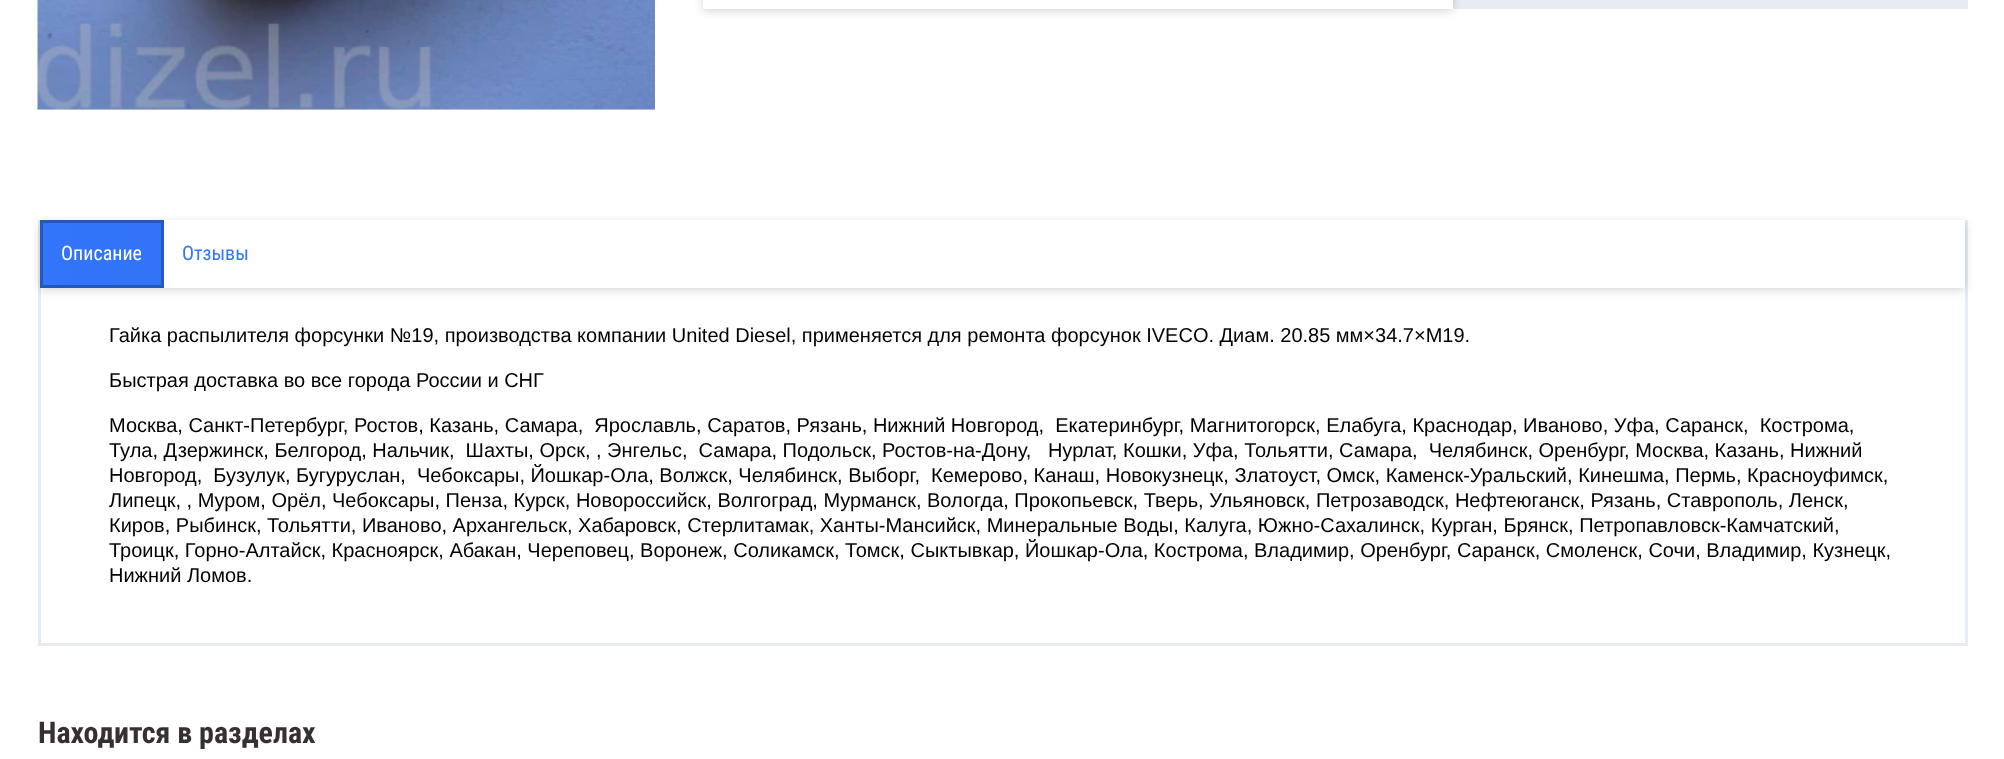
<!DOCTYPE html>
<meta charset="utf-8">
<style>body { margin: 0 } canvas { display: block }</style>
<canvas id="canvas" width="2004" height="759"></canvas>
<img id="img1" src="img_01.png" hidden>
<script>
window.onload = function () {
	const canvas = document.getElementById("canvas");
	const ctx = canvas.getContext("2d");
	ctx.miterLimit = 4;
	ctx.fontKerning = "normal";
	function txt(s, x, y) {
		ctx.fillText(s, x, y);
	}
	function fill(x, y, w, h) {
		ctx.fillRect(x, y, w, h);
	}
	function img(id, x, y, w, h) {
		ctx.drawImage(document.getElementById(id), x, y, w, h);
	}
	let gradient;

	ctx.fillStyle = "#FFFFFF";
	fill(0, 0, 2004, 759);
	img("img1", 37, 0, 618, 110);
	ctx.fillStyle = "#E6ECF1";
	fill(1453, 0, 515, 9);
	ctx.fillStyle = "rgba(0, 0, 0, 0.16)";
	ctx.filter = "blur(5px)";
	ctx.beginPath();
	ctx.rect(703, -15, 750, 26);
	ctx.fill();
	ctx.filter = "none";
	ctx.fillStyle = "#FFFFFF";
	fill(703, 0, 750, 9);
	ctx.fillStyle = "#E6ECF1";
	fill(1965, 220, 3, 425);
	fill(38, 643, 1930, 3);
	fill(38, 220, 3, 425);
	ctx.fillStyle = "rgba(0, 0, 0, 0.16)";
	ctx.filter = "blur(5px)";
	ctx.beginPath();
	ctx.rect(40, 223, 1925, 67);
	ctx.fill();
	ctx.filter = "none";
	ctx.fillStyle = "#FFFFFF";
	fill(164, 220, 1801, 68);
	gradient = ctx.createLinearGradient(0, 380, 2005, 380);
	gradient.addColorStop(0, "#3375FC");
	gradient.addColorStop(1, "#235AB6");
	ctx.fillStyle = gradient;
	fill(43, 223, 118, 62);
	ctx.strokeStyle = "#235AB7";
	ctx.lineWidth = 3;
	ctx.strokeRect(41.5, 221.5, 121, 65);
	ctx.font = "20px Roboto Condensed";
	ctx.fillStyle = "#FFFFFF";
	txt("Описание", 61, 260);
	ctx.fillStyle = "#3375FC";
	txt("Отзывы", 182, 260);
	ctx.font = "20px Liberation Sans";
	ctx.fillStyle = "#000000";
	txt("Гайка распылителя форсунки №19, производства компании United Diesel, применяется для ремонта форсунок IVECO. Диам. 20.85 мм×34.7×M19.", 109, 342);
	txt("Быстрая доставка во все города России и СНГ", 109, 387);
	txt("Москва, Санкт-Петербург, Ростов, Казань, Самара,  Ярославль, Саратов, Рязань, Нижний Новгород,  Екатеринбург, Магнитогорск, Елабуга, Краснодар, Иваново, Уфа, Саранск,  Кострома,", 109, 432);
	txt("Тула, Дзержинск, Белгород, Нальчик,  Шахты, Орск, , Энгельс,  Самара, Подольск, Ростов-на-Дону,   Нурлат, Кошки, Уфа, Тольятти, Самара,  Челябинск, Оренбург, Москва, Казань, Нижний", 109, 457);
	txt("Новгород,  Бузулук, Бугуруслан,  Чебоксары, Йошкар-Ола, Волжск, Челябинск, Выборг,  Кемерово, Канаш, Новокузнецк, Златоуст, Омск, Каменск-Уральский, Кинешма, Пермь, Красноуфимск,", 109, 482);
	txt("Липецк, , Муром, Орёл, Чебоксары, Пенза, Курск, Новороссийск, Волгоград, Мурманск, Вологда, Прокопьевск, Тверь, Ульяновск, Петрозаводск, Нефтеюганск, Рязань, Ставрополь, Ленск,", 109, 507);
	txt("Киров, Рыбинск, Тольятти, Иваново, Архангельск, Хабаровск, Стерлитамак, Ханты-Мансийск, Минеральные Воды, Калуга, Южно-Сахалинск, Курган, Брянск, Петропавловск-Камчатский,", 109, 532);
	txt("Троицк, Горно-Алтайск, Красноярск, Абакан, Череповец, Воронеж, Соликамск, Томск, Сыктывкар, Йошкар-Ола, Кострома, Владимир, Оренбург, Саранск, Смоленск, Сочи, Владимир, Кузнецк,", 109, 557);
	txt("Нижний Ломов.", 109, 582);
	ctx.font = "bold 30px Roboto Condensed";
	ctx.fillStyle = "#383030";
	txt("Находится в разделах", 38, 743);
};
</script>
